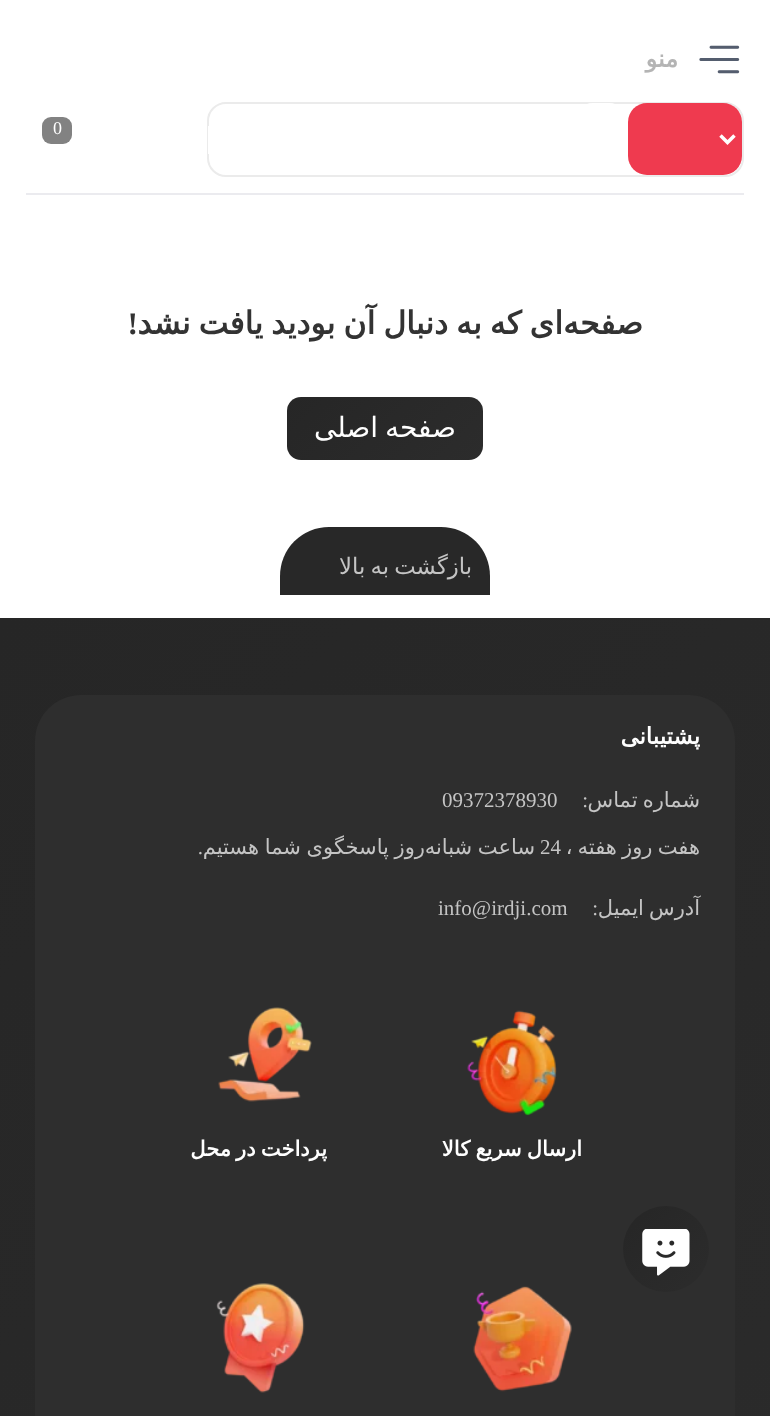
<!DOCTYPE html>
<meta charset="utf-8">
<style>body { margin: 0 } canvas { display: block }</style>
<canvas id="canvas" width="770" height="1416"></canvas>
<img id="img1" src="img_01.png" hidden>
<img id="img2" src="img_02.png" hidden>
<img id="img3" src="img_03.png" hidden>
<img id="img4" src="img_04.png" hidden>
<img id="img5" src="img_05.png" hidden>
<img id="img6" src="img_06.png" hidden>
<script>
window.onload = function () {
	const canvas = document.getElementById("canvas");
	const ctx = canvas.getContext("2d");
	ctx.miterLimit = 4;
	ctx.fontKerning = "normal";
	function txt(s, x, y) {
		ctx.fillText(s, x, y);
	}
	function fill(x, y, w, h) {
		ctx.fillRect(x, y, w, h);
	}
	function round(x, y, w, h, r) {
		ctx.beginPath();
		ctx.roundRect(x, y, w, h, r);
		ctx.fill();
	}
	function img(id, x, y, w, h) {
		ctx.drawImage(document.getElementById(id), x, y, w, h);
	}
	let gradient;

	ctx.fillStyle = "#FFFFFF";
	fill(0, 0, 770, 1416);
	img("img1", 699, 45, 41, 29);
	ctx.fillStyle = "#EBEBEF";
	fill(26, 193, 718, 2);
	ctx.beginPath();
	ctx.roundRect(208, 103, 535, 73, 18);
	ctx.strokeStyle = "#EBEBEB";
	ctx.lineWidth = 2;
	ctx.stroke();
	ctx.fillStyle = "#EF3A4F";
	round(628, 103, 114, 72, 19);
	ctx.beginPath();
	ctx.moveTo(720.5, 135.5);
	ctx.lineTo(727.5, 142.5);
	ctx.lineTo(734.5, 135.5);
	ctx.strokeStyle = "#FFFFFF";
	ctx.lineWidth = 3.5;
	ctx.stroke();
	ctx.fillStyle = "#FFFFFF";
	round(574, 103, 54, 72, 19);
	fill(208, 126, 1, 28);
	ctx.fillStyle = "#828282";
	round(42, 117, 30, 27, 9);
	gradient = ctx.createLinearGradient(320, 364, 450, 494);
	gradient.addColorStop(0, "#262626");
	gradient.addColorStop(1, "#2C2C2C");
	ctx.fillStyle = gradient;
	round(287, 397, 196, 63, 14);
	gradient = ctx.createLinearGradient(-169, 787, 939, 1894);
	gradient.addColorStop(0, "#262626");
	gradient.addColorStop(1, "#2C2C2C");
	ctx.fillStyle = gradient;
	fill(0, 618, 770, 798);
	ctx.fillStyle = "#282828";
	ctx.beginPath();
	ctx.roundRect(280, 527, 210, 68, [49, 49, 0, 0]);
	ctx.fill();
	ctx.fillStyle = "#2E2E2E";
	round(35, 695, 700, 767, 46);
	img("img2", 467, 1010, 90, 106);
	img("img3", 218, 1007, 94, 95);
	img("img4", 473, 1286, 99, 106);
	img("img5", 216, 1283, 89, 110);
	gradient = ctx.createLinearGradient(623, 1206, 709, 1291);
	gradient.addColorStop(0, "#262626");
	gradient.addColorStop(1, "#2C2C2C");
	ctx.fillStyle = gradient;
	ctx.beginPath();
	ctx.arc(666, 1249, 43, 0, Math.PI * 2);
	ctx.fill();
	img("img6", 642, 1229, 48, 47);
	ctx.direction = "rtl";
	ctx.font = "bold 24px DejaVu Sans";
	ctx.fillStyle = "#B4B4B4";
	txt("منو", 678, 67);
	ctx.direction = "ltr";
	ctx.font = "18px Liberation Serif";
	ctx.fillStyle = "#FFFFFF";
	txt("0", 53, 134);
	ctx.direction = "rtl";
	ctx.font = "bold 31.5px DejaVu Sans";
	ctx.fillStyle = "#333333";
	txt("صفحه", 643, 334);
	ctx.wordSpacing = "-2px";
	txt("ای که به دنبال آن بودید یافت نشد", 563, 334);
	ctx.wordSpacing = "0px";
	ctx.font = "bold 31.5px Liberation Serif";
	txt("!", 138, 334);
	ctx.wordSpacing = "-2px";
	ctx.font = "28px DejaVu Sans";
	ctx.fillStyle = "#FFFFFF";
	txt("صفحه اصلی", 456, 437);
	ctx.font = "22.75px DejaVu Sans";
	ctx.fillStyle = "#C4C4C4";
	txt("بازگشت به بالا", 472, 574);
	ctx.wordSpacing = "0px";
	ctx.font = "bold 22.75px DejaVu Sans";
	ctx.fillStyle = "#FFFFFF";
	txt("پشتیبانی", 700, 744);
	ctx.wordSpacing = "-1.5px";
	ctx.font = "21px DejaVu Sans";
	ctx.fillStyle = "#C4C4C4";
	txt("شماره تماس", 700, 807);
	ctx.wordSpacing = "0px";
	ctx.font = "21px Liberation Serif";
	txt(":", 588, 807);
	ctx.direction = "ltr";
	txt("09372378930", 442, 807);
	ctx.wordSpacing = "-1.5px";
	ctx.direction = "rtl";
	ctx.font = "21px DejaVu Sans";
	txt("هفت روز هفته ،", 700, 854);
	ctx.wordSpacing = "0px";
	ctx.direction = "ltr";
	ctx.font = "21px Liberation Serif";
	txt("24", 540, 854);
	ctx.wordSpacing = "-1px";
	ctx.direction = "rtl";
	ctx.font = "21px DejaVu Sans";
	txt("ساعت شبانه", 535, 854);
	txt("روز پاسخگوی شما هستیم", 425, 854);
	ctx.wordSpacing = "0px";
	ctx.font = "21px Liberation Serif";
	txt(".", 203, 854);
	ctx.wordSpacing = "-1.5px";
	ctx.font = "21px DejaVu Sans";
	txt("آدرس ایمیل", 700, 915);
	ctx.wordSpacing = "0px";
	ctx.font = "21px Liberation Serif";
	txt(":", 598, 915);
	ctx.direction = "ltr";
	txt("info@irdji.com", 438, 915);
	ctx.wordSpacing = "-1.5px";
	ctx.direction = "rtl";
	ctx.font = "bold 21px DejaVu Sans";
	ctx.fillStyle = "#FFFFFF";
	txt("ارسال سریع کالا", 582, 1156);
	txt("پرداخت در محل", 327, 1156);
};
</script>
